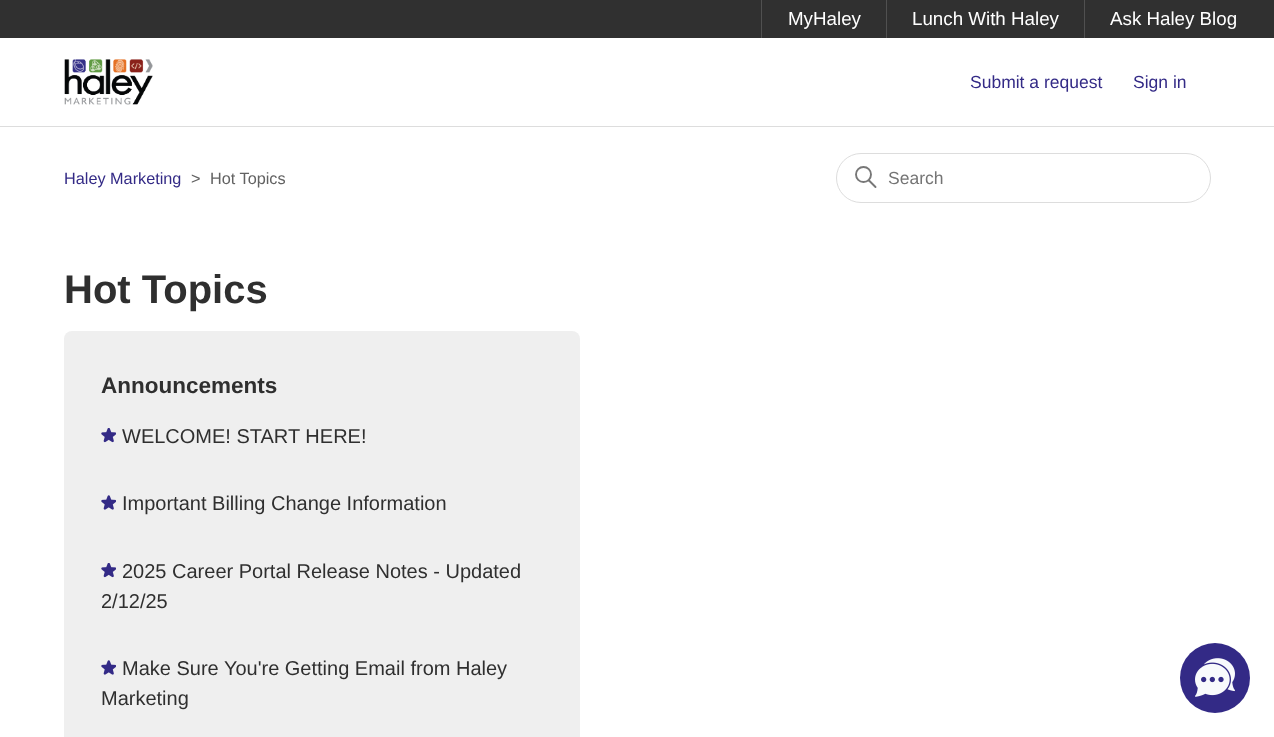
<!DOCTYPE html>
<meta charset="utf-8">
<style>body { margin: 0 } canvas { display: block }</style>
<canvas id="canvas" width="1274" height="737"></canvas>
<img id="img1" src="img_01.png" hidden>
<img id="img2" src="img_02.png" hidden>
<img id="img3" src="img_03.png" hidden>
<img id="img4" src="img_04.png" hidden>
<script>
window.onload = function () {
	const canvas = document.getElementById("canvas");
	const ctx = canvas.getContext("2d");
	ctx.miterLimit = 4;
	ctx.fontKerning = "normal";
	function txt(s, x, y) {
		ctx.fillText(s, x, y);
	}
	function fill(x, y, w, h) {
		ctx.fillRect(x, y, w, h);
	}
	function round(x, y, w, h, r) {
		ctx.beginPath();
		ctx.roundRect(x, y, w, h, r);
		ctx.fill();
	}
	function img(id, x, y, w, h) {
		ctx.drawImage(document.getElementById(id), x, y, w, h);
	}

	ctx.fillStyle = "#FFFFFF";
	fill(0, 0, 1274, 737);
	ctx.fillStyle = "#303030";
	fill(0, 0, 1274, 38);
	ctx.fillStyle = "#505050";
	fill(761, 0, 1, 38);
	fill(886, 0, 1, 38);
	fill(1084, 0, 1, 38);
	img("img1", 64, 59, 89, 46);
	ctx.fillStyle = "#DDDDDD";
	fill(0, 126, 1274, 1);
	ctx.beginPath();
	ctx.roundRect(836.5, 153.5, 374, 49, 24.5);
	ctx.strokeStyle = "#DDDDDD";
	ctx.stroke();
	ctx.beginPath();
	ctx.arc(863.5, 174.5, 7.5, 0, Math.PI * 2);
	ctx.strokeStyle = "#777777";
	ctx.lineWidth = 1.9;
	ctx.stroke();
	ctx.beginPath();
	ctx.moveTo(875.5, 187);
	ctx.lineTo(869, 180.5);
	ctx.lineCap = "round";
	ctx.stroke();
	ctx.fillStyle = "#EFEFEF";
	round(64, 331, 516, 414, 8);
	img("img2", 101, 428, 15, 15);
	img("img3", 101, 495, 15, 15);
	img("img2", 101, 563, 15, 15);
	img("img3", 101, 660, 15, 15);
	ctx.fillStyle = "#332A86";
	ctx.beginPath();
	ctx.arc(1215, 678, 35, 0, Math.PI * 2);
	ctx.fill();
	img("img4", 1195, 658, 40, 39);
	ctx.font = "18.75px Liberation Sans";
	ctx.fillStyle = "#FFFFFF";
	txt("MyHaley", 788, 25);
	txt("Lunch With Haley", 912, 25);
	txt("Ask Haley Blog", 1110, 25);
	ctx.font = "17.5px Liberation Sans";
	ctx.fillStyle = "#332A86";
	txt("Submit a request", 970, 88);
	txt("Sign in", 1133, 88);
	ctx.font = "16.25px Liberation Sans";
	txt("Haley Marketing", 64, 184);
	ctx.fillStyle = "#626262";
	txt(">", 191, 184);
	txt("Hot Topics", 210, 184);
	ctx.font = "17.5px Liberation Sans";
	ctx.fillStyle = "#757575";
	txt("Search", 888, 184);
	ctx.font = "bold 40px Liberation Sans";
	ctx.fillStyle = "#2F2F2F";
	txt("Hot Topics", 64, 303);
	ctx.font = "bold 22.5px Liberation Sans";
	txt("Announcements", 101, 393);
	ctx.font = "20px Liberation Sans";
	txt("WELCOME! START HERE!", 122, 443);
	txt("Important Billing Change Information", 122, 510);
	txt("2025 Career Portal Release Notes - Updated", 122, 578);
	txt("2/12/25", 101, 608);
	txt("Make Sure You're Getting Email from Haley", 122, 675);
	txt("Marketing", 101, 705);
};
</script>
